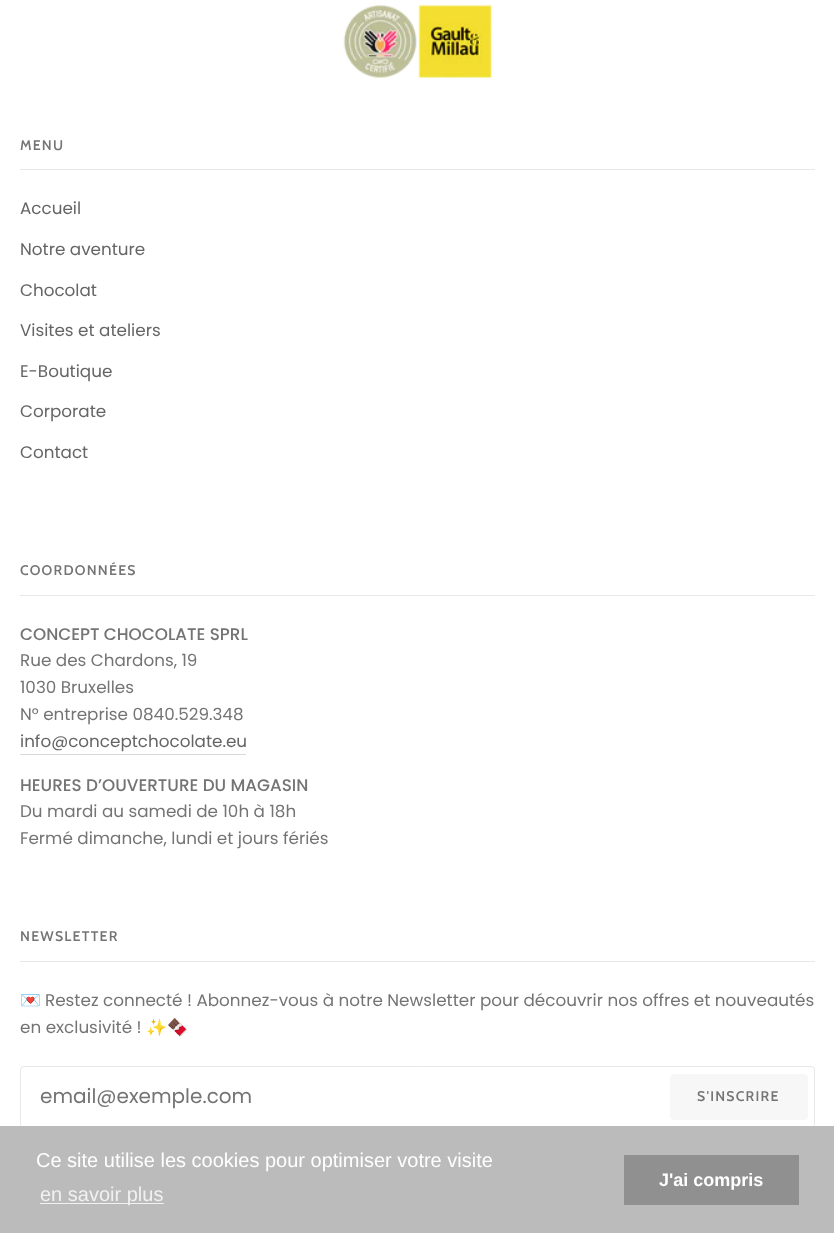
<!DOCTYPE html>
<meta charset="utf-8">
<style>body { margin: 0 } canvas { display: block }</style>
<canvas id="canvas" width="834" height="1233"></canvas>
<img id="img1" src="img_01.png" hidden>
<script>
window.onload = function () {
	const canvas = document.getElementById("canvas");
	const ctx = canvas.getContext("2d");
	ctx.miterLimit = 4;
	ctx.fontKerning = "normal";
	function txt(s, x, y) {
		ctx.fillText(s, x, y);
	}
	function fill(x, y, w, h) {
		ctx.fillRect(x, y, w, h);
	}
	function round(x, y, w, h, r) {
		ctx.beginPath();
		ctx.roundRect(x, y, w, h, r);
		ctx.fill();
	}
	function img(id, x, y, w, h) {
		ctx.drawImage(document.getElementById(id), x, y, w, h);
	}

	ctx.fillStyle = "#FFFFFF";
	fill(0, 0, 834, 1233);
	img("img1", 343, 4, 149, 74);
	ctx.fillStyle = "#E8E8E8";
	fill(20, 169, 795, 1);
	fill(20, 595, 795, 1);
	ctx.fillStyle = "#D9D9D9";
	fill(20, 754, 226, 1);
	ctx.fillStyle = "#E8E8E8";
	fill(20, 961, 795, 1);
	ctx.beginPath();
	ctx.roundRect(20.5, 1066.5, 794, 61, 3.5);
	ctx.strokeStyle = "#E8E8E8";
	ctx.stroke();
	ctx.fillStyle = "#F7F7F7";
	round(670, 1074, 138, 46, 4);
	ctx.fillStyle = "#BBBBBB";
	fill(0, 1126, 834, 107);
	ctx.fillStyle = "#F1F1F1";
	fill(40, 1203, 124, 1);
	ctx.fillStyle = "#909090";
	fill(624, 1155, 175, 50);
	ctx.letterSpacing = "1.25px";
	ctx.font = "600 14px Cabin";
	ctx.fillStyle = "#747474";
	txt("MENU", 20, 150);
	ctx.letterSpacing = "0px";
	ctx.font = "16.8px Poppins";
	ctx.fillStyle = "#656565";
	txt("Accueil", 20, 214);
	txt("Notre aventure", 20, 255);
	txt("Chocolat", 20, 296);
	txt("Visites et ateliers", 20, 336);
	txt("E-Boutique", 20, 377);
	txt("Corporate", 20, 417);
	txt("Contact", 20, 458);
	ctx.letterSpacing = "1.25px";
	ctx.font = "600 14px Cabin";
	ctx.fillStyle = "#747474";
	txt("COORDONNÉES", 20, 575);
	ctx.letterSpacing = "0px";
	ctx.font = "500 16.8px Poppins";
	txt("CONCEPT CHOCOLATE SPRL", 20, 640);
	ctx.font = "16.8px Poppins";
	txt("Rue des Chardons, 19", 20, 666);
	txt("1030 Bruxelles", 20, 693);
	txt("N° entreprise 0840.529.348", 20, 720);
	ctx.fillStyle = "#656565";
	txt("info@conceptchocolate.eu", 20, 747);
	ctx.font = "500 16.8px Poppins";
	ctx.fillStyle = "#747474";
	txt("HEURES D’OUVERTURE DU MAGASIN", 20, 791);
	ctx.font = "16.8px Poppins";
	txt("Du mardi au samedi de 10h à 18h", 20, 817);
	txt("Fermé dimanche, lundi et jours fériés", 20, 844);
	ctx.letterSpacing = "1.25px";
	ctx.font = "600 14px Cabin";
	txt("NEWSLETTER", 20, 941);
	ctx.letterSpacing = "0px";
	ctx.font = "16.8px Noto Color Emoji";
	txt("💌", 20, 1006);
	ctx.font = "16.8px Poppins";
	txt("Restez connecté ! Abonnez-vous à notre Newsletter pour découvrir nos offres et nouveautés", 45, 1006);
	txt("en exclusivité !", 20, 1033);
	ctx.font = "16.8px Noto Color Emoji";
	txt("✨🍫", 146, 1033);
	ctx.font = "20px Poppins";
	txt("email@exemple.com", 40, 1103);
	ctx.letterSpacing = "1.25px";
	ctx.font = "600 14px Cabin";
	txt("S'INSCRIRE", 697, 1101);
	ctx.letterSpacing = "0px";
	ctx.font = "20px Liberation Sans";
	ctx.fillStyle = "#FFFFFF";
	txt("Ce site utilise les cookies pour optimiser votre visite", 36, 1167);
	ctx.fillStyle = "#F1F1F1";
	txt("en savoir plus", 40, 1201);
	ctx.font = "bold 18px Liberation Sans";
	ctx.fillStyle = "#FFFFFF";
	txt("J'ai compris", 659, 1186);
};
</script>
